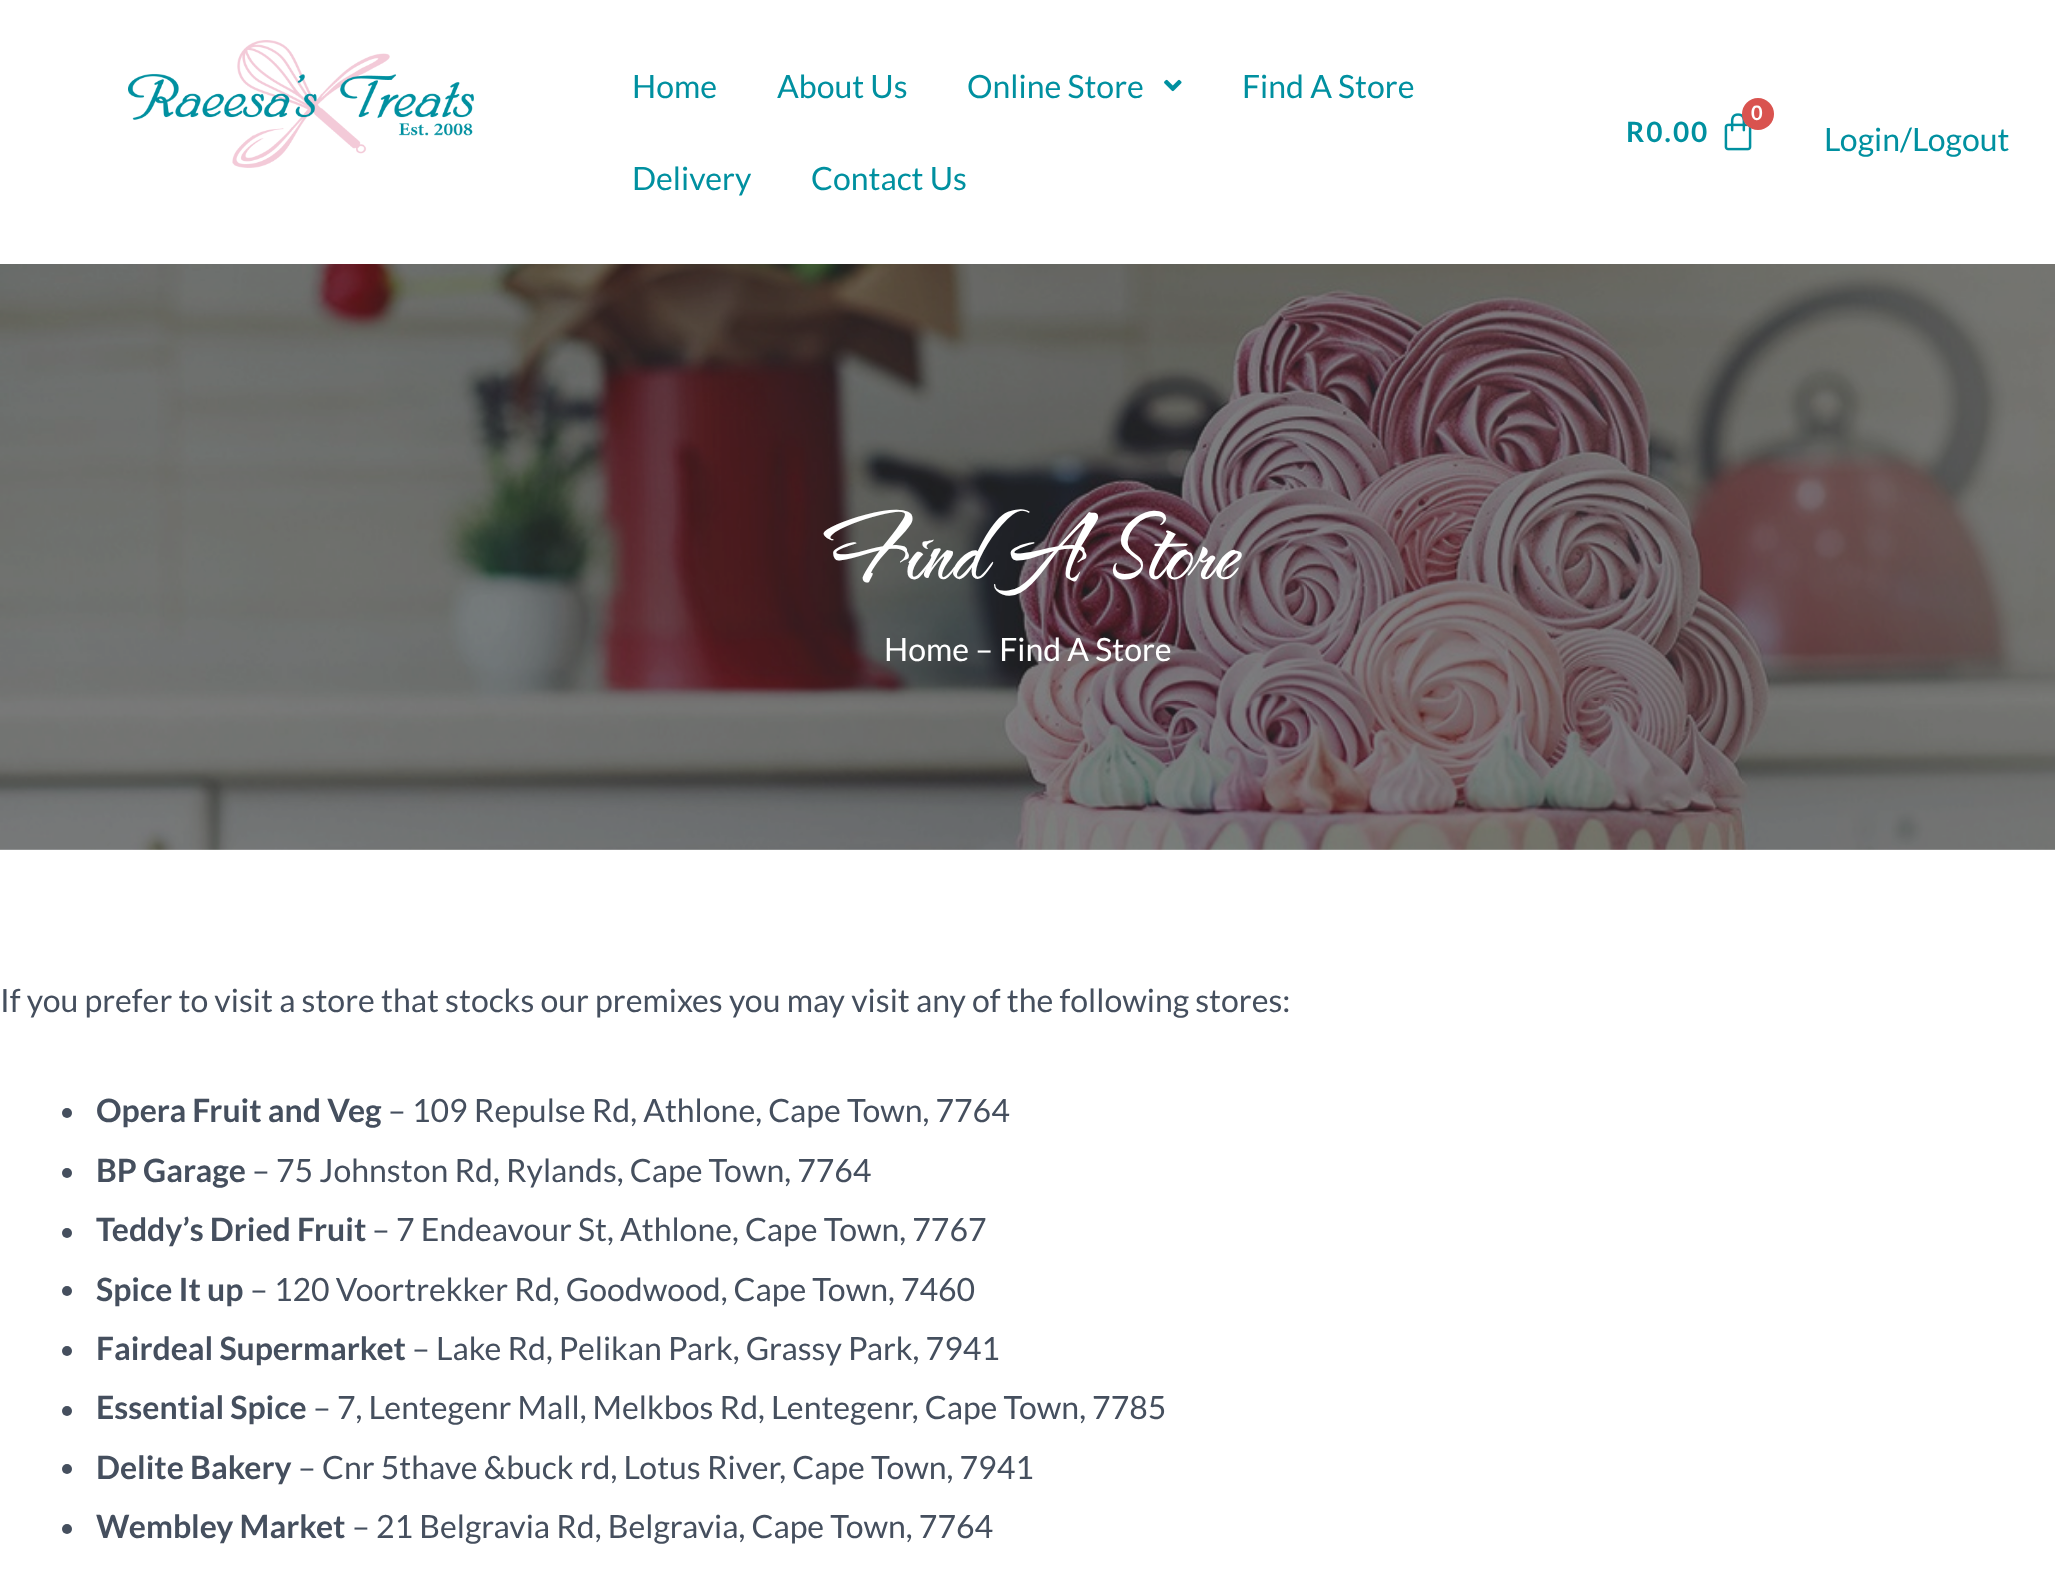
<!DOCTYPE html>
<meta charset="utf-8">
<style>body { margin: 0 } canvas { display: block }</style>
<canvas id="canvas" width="2055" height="1574"></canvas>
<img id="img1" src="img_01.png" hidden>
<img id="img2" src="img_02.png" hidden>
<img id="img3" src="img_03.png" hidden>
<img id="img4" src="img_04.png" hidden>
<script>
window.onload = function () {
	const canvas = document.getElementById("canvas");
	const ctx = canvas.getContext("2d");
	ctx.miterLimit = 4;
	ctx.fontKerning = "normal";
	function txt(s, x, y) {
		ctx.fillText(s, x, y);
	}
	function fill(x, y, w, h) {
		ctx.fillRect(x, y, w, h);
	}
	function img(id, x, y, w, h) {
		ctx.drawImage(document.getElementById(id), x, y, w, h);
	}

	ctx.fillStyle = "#FFFFFF";
	fill(0, 0, 2055, 1574);
	img("img1", 128, 40, 346, 128);
	img("img2", 1164, 79, 18, 13);
	img("img3", 1724, 113, 28, 38);
	ctx.fillStyle = "#D9534F";
	ctx.beginPath();
	ctx.arc(1758, 114, 16, 0, Math.PI * 2);
	ctx.fill();
	img("img4", 0, 264, 2055, 586);
	ctx.fillStyle = "#454F5E";
	ctx.beginPath();
	ctx.arc(67, 1113, 5, 0, Math.PI * 2);
	ctx.fill();
	ctx.beginPath();
	ctx.arc(67, 1173, 5, 0, Math.PI * 2);
	ctx.fill();
	ctx.beginPath();
	ctx.arc(67, 1233, 5, 0, Math.PI * 2);
	ctx.fill();
	ctx.beginPath();
	ctx.arc(67, 1291, 5, 0, Math.PI * 2);
	ctx.fill();
	ctx.beginPath();
	ctx.arc(67, 1351, 5, 0, Math.PI * 2);
	ctx.fill();
	ctx.beginPath();
	ctx.arc(67, 1411, 5, 0, Math.PI * 2);
	ctx.fill();
	ctx.beginPath();
	ctx.arc(67, 1469, 5, 0, Math.PI * 2);
	ctx.fill();
	ctx.beginPath();
	ctx.arc(67, 1529, 5, 0, Math.PI * 2);
	ctx.fill();
	ctx.font = "32px Lato";
	ctx.fillStyle = "#0090A0";
	txt("Home", 632, 98);
	txt("About Us", 777, 98);
	txt("Online Store", 967, 98);
	txt("Find A Store", 1242, 98);
	txt("Delivery", 632, 190);
	txt("Contact Us", 811, 190);
	ctx.letterSpacing = "2px";
	ctx.font = "bold 20px Lato";
	ctx.fillStyle = "#FFFFFF";
	txt("0", 1751, 120);
	ctx.font = "bold 28px Lato";
	ctx.fillStyle = "#0090A0";
	txt("R0.00", 1626, 142);
	ctx.letterSpacing = "0px";
	ctx.font = "32px Lato";
	txt("Login/Logout", 1824, 151);
	ctx.font = "bold 104px The Nautigal";
	ctx.fillStyle = "#FFFFFF";
	txt("Find A Store", 822, 578);
	ctx.font = "32px Lato";
	txt("Home – Find A Store", 884, 661);
	ctx.fillStyle = "#454F5E";
	txt("If you prefer to visit a store that stocks our premixes you may visit any of the following stores:", 0, 1012);
	ctx.font = "bold 32px Lato";
	txt("Opera Fruit and Veg", 96, 1122);
	ctx.font = "32px Lato";
	txt("– 109 Repulse Rd, Athlone, Cape Town, 7764", 388, 1122);
	ctx.font = "bold 32px Lato";
	txt("BP Garage", 96, 1182);
	ctx.font = "32px Lato";
	txt("– 75 Johnston Rd, Rylands, Cape Town, 7764", 252, 1182);
	ctx.font = "bold 32px Lato";
	txt("Teddy’s Dried Fruit", 96, 1241);
	ctx.font = "32px Lato";
	txt("– 7 Endeavour St, Athlone, Cape Town, 7767", 372, 1241);
	ctx.font = "bold 32px Lato";
	txt("Spice It up", 96, 1301);
	ctx.font = "32px Lato";
	txt("– 120 Voortrekker Rd, Goodwood, Cape Town, 7460", 250, 1301);
	ctx.font = "bold 32px Lato";
	txt("Fairdeal Supermarket", 96, 1360);
	ctx.font = "32px Lato";
	txt("– Lake Rd, Pelikan Park, Grassy Park, 7941", 412, 1360);
	ctx.font = "bold 32px Lato";
	txt("Essential Spice", 96, 1419);
	ctx.font = "32px Lato";
	txt("– 7, Lentegenr Mall, Melkbos Rd, Lentegenr, Cape Town, 7785", 313, 1419);
	ctx.font = "bold 32px Lato";
	txt("Delite Bakery", 96, 1479);
	ctx.font = "32px Lato";
	txt("– Cnr 5thave &buck rd, Lotus River, Cape Town, 7941", 298, 1479);
	ctx.font = "bold 32px Lato";
	txt("Wembley Market", 96, 1538);
	ctx.font = "32px Lato";
	txt("– 21 Belgravia Rd, Belgravia, Cape Town, 7764", 352, 1538);
};
</script>
